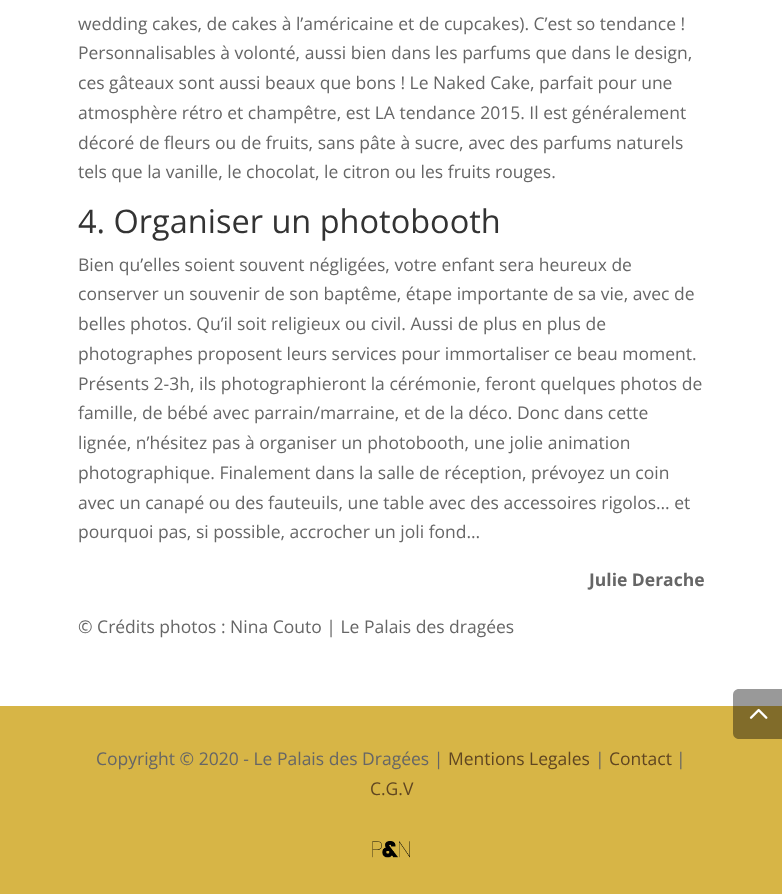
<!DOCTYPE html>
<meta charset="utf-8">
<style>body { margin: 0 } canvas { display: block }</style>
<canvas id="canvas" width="782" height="894"></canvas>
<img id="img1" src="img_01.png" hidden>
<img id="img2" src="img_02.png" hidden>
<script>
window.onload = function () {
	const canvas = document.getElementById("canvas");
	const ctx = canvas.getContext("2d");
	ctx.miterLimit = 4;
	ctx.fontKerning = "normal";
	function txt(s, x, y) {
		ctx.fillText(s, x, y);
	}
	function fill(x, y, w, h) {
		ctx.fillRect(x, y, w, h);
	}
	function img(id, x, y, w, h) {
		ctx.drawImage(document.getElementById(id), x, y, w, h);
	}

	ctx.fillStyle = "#FFFFFF";
	fill(0, 0, 782, 894);
	ctx.fillStyle = "#D7B546";
	fill(0, 706, 782, 188);
	img("img1", 372, 841, 38, 17);
	ctx.fillStyle = "rgba(0, 0, 0, 0.4)";
	ctx.beginPath();
	ctx.moveTo(739, 689);
	ctx.lineTo(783, 689);
	ctx.lineTo(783, 739);
	ctx.lineTo(739, 739);
	ctx.bezierCurveTo(735.5, 739, 733, 736.5, 733, 733);
	ctx.lineTo(733, 695);
	ctx.bezierCurveTo(733, 691.5, 735.5, 689, 739, 689);
	ctx.closePath();
	ctx.fill();
	img("img2", 749, 708, 19, 11);
	ctx.font = "17.5px Open Sans";
	ctx.fillStyle = "#666666";
	txt("wedding cakes, de cakes à l’américaine et de cupcakes). C’est so tendance !", 78, 30);
	txt("Personnalisables à volonté, aussi bien dans les parfums que dans le design,", 78, 59);
	txt("ces gâteaux sont aussi beaux que bons ! Le Naked Cake, parfait pour une", 78, 89);
	txt("atmosphère rétro et champêtre, est LA tendance 2015. Il est généralement", 78, 119);
	txt("décoré de fleurs ou de fruits, sans pâte à sucre, avec des parfums naturels", 78, 149);
	txt("tels que la vanille, le chocolat, le citron ou les fruits rouges.", 78, 178);
	ctx.font = "32.5px Open Sans";
	ctx.fillStyle = "#333333";
	txt("4. Organiser un photobooth", 78, 233);
	ctx.font = "17.5px Open Sans";
	ctx.fillStyle = "#666666";
	txt("Bien qu’elles soient souvent négligées, votre enfant sera heureux de", 78, 271);
	txt("conserver un souvenir de son baptême, étape importante de sa vie, avec de", 78, 300);
	txt("belles photos. Qu’il soit religieux ou civil. Aussi de plus en plus de", 78, 330);
	txt("photographes proposent leurs services pour immortaliser ce beau moment.", 78, 360);
	txt("Présents 2-3h, ils photographieront la cérémonie, feront quelques photos de", 78, 390);
	txt("famille, de bébé avec parrain/marraine, et de la déco. Donc dans cette", 78, 419);
	txt("lignée, n’hésitez pas à organiser un photobooth, une jolie animation", 78, 449);
	txt("photographique. Finalement dans la salle de réception, prévoyez un coin", 78, 479);
	txt("avec un canapé ou des fauteuils, une table avec des accessoires rigolos… et", 78, 509);
	txt("pourquoi pas, si possible, accrocher un joli fond…", 78, 538);
	ctx.font = "bold 17.5px Open Sans";
	txt("Julie Derache", 589, 586);
	ctx.font = "17.5px Open Sans";
	txt("© Crédits photos : Nina Couto | Le Palais des dragées", 78, 633);
	txt("Copyright © 2020 - Le Palais des Dragées |", 96, 765);
	ctx.fillStyle = "#604621";
	txt("Mentions Legales", 448, 765);
	ctx.fillStyle = "#666666";
	txt("|", 595, 765);
	ctx.fillStyle = "#604621";
	txt("Contact", 609, 765);
	ctx.fillStyle = "#666666";
	txt("|", 676, 765);
	ctx.fillStyle = "#604621";
	txt("C.G.V", 370, 795);
};
</script>
